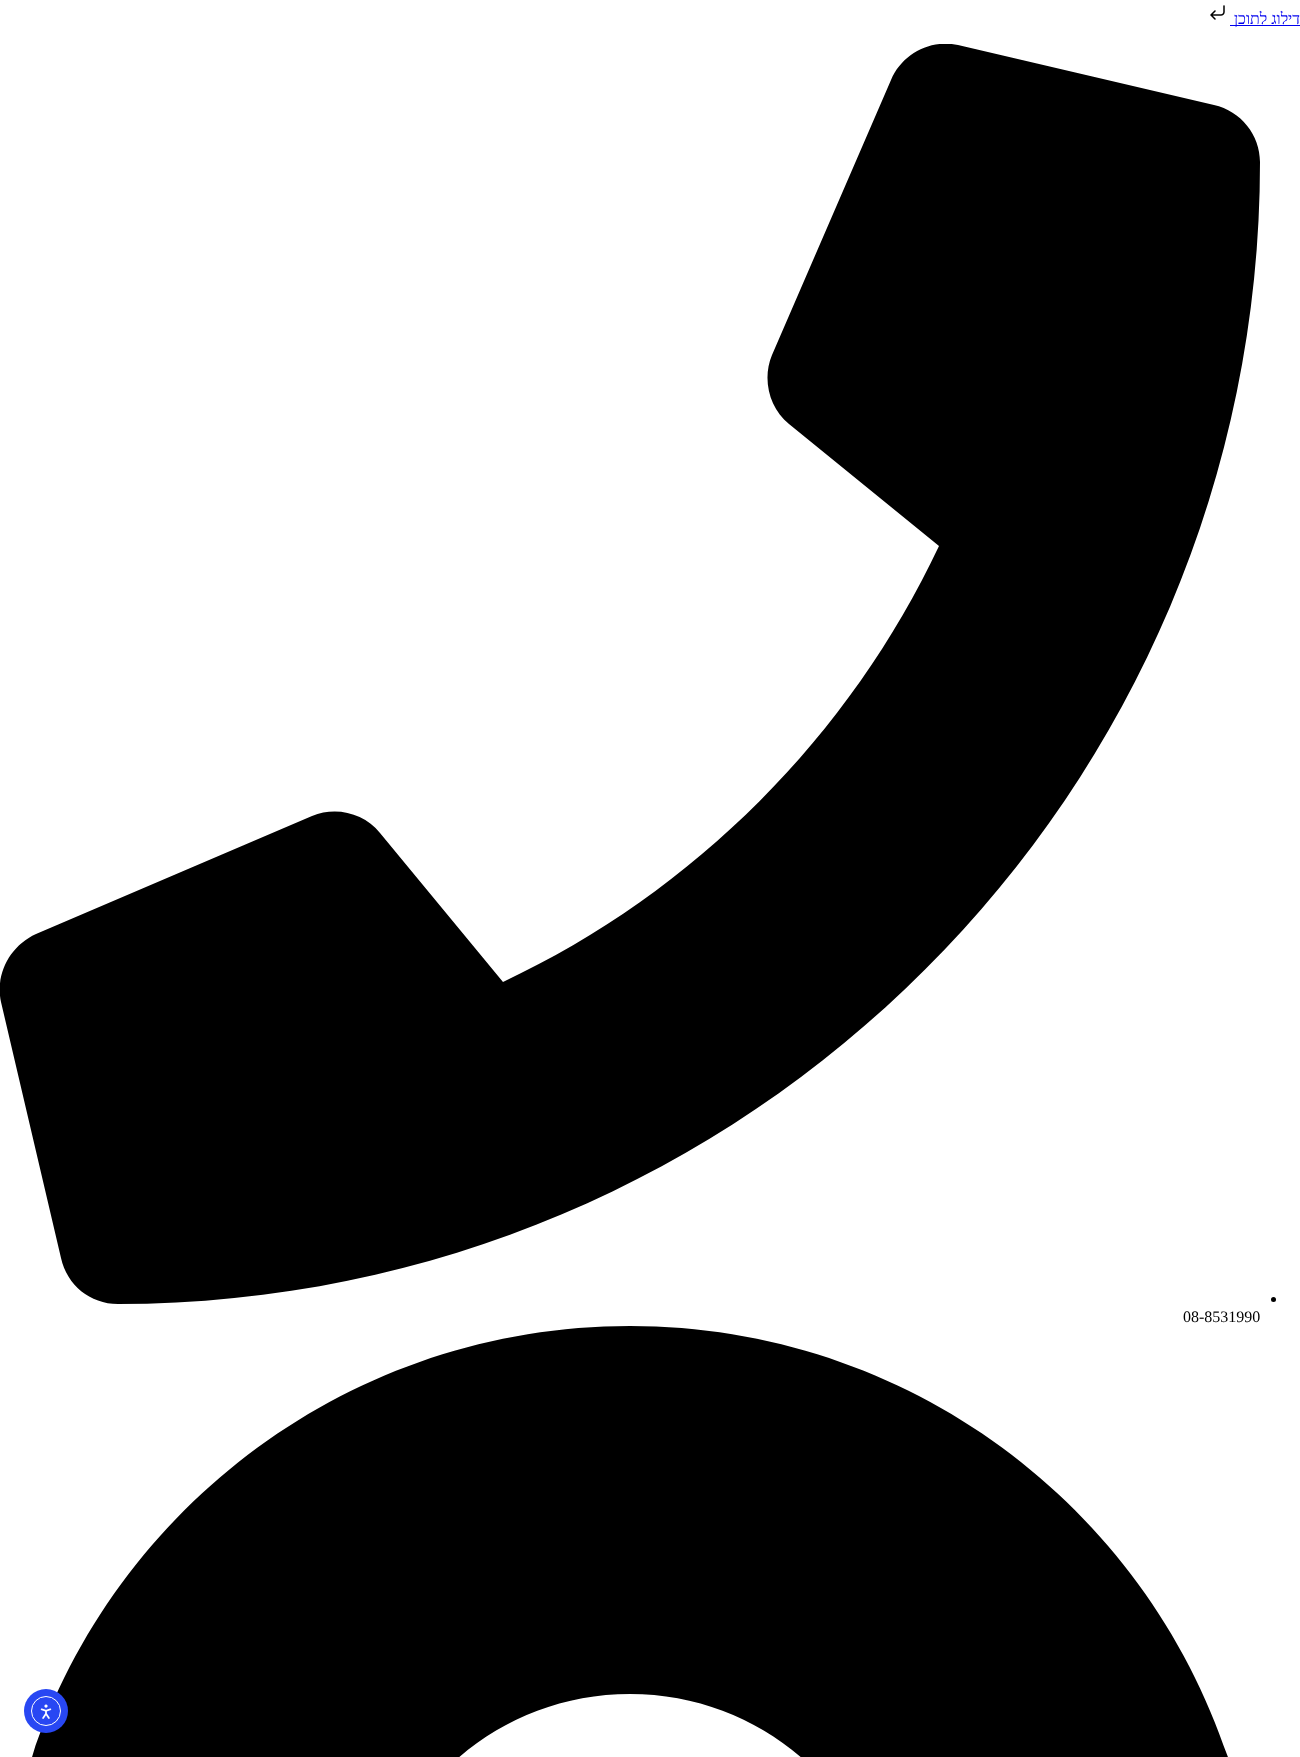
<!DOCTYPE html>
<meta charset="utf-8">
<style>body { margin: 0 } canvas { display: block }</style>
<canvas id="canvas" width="1300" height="1757"></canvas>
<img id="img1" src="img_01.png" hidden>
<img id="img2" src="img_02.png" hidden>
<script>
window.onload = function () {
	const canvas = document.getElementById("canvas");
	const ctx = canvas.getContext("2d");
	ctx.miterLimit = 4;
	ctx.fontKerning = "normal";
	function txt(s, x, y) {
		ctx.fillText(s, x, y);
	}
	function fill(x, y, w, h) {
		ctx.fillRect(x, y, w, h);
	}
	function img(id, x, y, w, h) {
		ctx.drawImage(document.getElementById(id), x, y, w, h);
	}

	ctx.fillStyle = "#FFFFFF";
	fill(0, 0, 1300, 1757);
	ctx.fillStyle = "#0000EE";
	fill(1230, 25, 70, 1);
	img("img1", 1210, 5, 15, 15);
	ctx.fillStyle = "#000000";
	ctx.beginPath();
	ctx.arc(1273.5, 1299.5, 2.5, 0, Math.PI * 2);
	ctx.fill();
	ctx.save();
	ctx.beginPath();
	ctx.rect(0, 44, 1260, 1260);
	ctx.clip();
	ctx.beginPath();
	ctx.moveTo(1214, 105);
	ctx.lineTo(958, 45);
	ctx.bezierCurveTo(930, 39, 902, 54, 891, 80);
	ctx.lineTo(772, 355);
	ctx.bezierCurveTo(762, 379, 769, 408, 789, 424);
	ctx.lineTo(939, 546);
	ctx.bezierCurveTo(850, 735, 695, 892, 503, 982);
	ctx.lineTo(380, 833);
	ctx.bezierCurveTo(364, 813, 336, 806, 312, 816);
	ctx.lineTo(36, 934);
	ctx.bezierCurveTo(10, 946, -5, 974, 1, 1002);
	ctx.lineTo(61, 1258);
	ctx.bezierCurveTo(67, 1285, 90, 1304, 118, 1304);
	ctx.bezierCurveTo(748, 1304, 1260, 793, 1260, 162);
	ctx.bezierCurveTo(1260, 135, 1241, 111, 1214, 105);
	ctx.closePath();
	ctx.fill();
	ctx.restore();
	ctx.beginPath();
	ctx.moveTo(565, 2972);
	ctx.bezierCurveTo(88, 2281, 0, 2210, 0, 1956);
	ctx.bezierCurveTo(0, 1608, 282, 1326, 630, 1326);
	ctx.bezierCurveTo(978, 1326, 1260, 1608, 1260, 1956);
	ctx.bezierCurveTo(1260, 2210, 1172, 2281, 695, 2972);
	ctx.bezierCurveTo(663, 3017, 597, 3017, 565, 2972);
	ctx.closePath();
	ctx.moveTo(630, 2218);
	ctx.bezierCurveTo(775, 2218, 892, 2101, 892, 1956);
	ctx.bezierCurveTo(892, 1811, 775, 1694, 630, 1694);
	ctx.bezierCurveTo(485, 1694, 368, 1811, 368, 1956);
	ctx.bezierCurveTo(368, 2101, 485, 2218, 630, 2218);
	ctx.closePath();
	ctx.fill();
	ctx.fillStyle = "#2847F3";
	ctx.beginPath();
	ctx.arc(46, 1711, 22, 0, Math.PI * 2);
	ctx.fill();
	ctx.beginPath();
	ctx.arc(46, 1711, 14.5, 0, Math.PI * 2);
	ctx.strokeStyle = "#FFFFFF";
	ctx.stroke();
	img("img2", 40, 1704, 12, 15);
	ctx.direction = "rtl";
	ctx.font = "16px Liberation Serif";
	ctx.fillStyle = "#0000EE";
	txt("דילוג לתוכן", 1300, 24);
	ctx.direction = "ltr";
	ctx.fillStyle = "#000000";
	txt("08-8531990", 1183, 1322);
};
</script>
